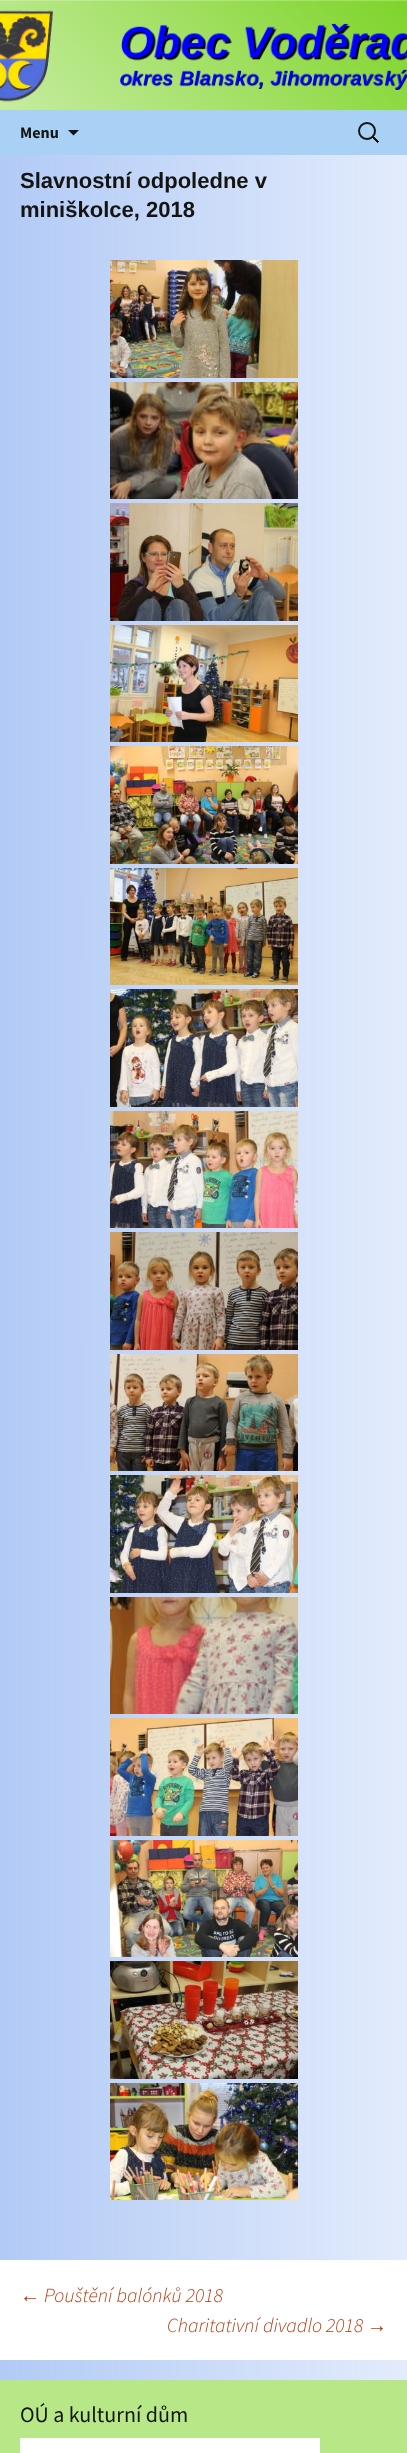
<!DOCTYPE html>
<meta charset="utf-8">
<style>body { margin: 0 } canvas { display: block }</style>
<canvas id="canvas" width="407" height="2453"></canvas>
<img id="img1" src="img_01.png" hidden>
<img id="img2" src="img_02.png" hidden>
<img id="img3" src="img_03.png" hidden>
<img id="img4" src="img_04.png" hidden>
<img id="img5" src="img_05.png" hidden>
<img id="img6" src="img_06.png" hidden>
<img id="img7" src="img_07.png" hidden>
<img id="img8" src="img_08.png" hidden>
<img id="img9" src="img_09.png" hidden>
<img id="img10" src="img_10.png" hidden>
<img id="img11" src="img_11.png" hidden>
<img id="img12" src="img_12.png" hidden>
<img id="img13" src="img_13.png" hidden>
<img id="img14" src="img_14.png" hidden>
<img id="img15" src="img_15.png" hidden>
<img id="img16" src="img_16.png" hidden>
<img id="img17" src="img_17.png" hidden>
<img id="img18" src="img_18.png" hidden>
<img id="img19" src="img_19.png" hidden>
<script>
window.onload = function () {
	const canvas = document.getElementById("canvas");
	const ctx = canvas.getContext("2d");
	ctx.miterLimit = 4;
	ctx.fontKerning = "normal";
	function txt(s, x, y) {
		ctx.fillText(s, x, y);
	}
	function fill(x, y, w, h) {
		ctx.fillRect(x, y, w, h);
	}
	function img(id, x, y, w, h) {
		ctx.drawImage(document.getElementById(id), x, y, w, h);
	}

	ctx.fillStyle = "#FFFFFF";
	fill(0, 0, 407, 2453);
	img("img1", 0, 155, 407, 2225);
	img("img2", 0, 0, 407, 110);
	ctx.fillStyle = "#A9D0F5";
	fill(0, 110, 407, 45);
	ctx.fillStyle = "#141412";
	ctx.beginPath();
	ctx.moveTo(68, 130);
	ctx.lineTo(73.5, 135.5);
	ctx.lineTo(79, 130);
	ctx.closePath();
	ctx.fill();
	img("img3", 358, 122, 21, 21);
	img("img4", 110, 260, 188, 118);
	img("img5", 110, 382, 188, 117);
	img("img6", 110, 503, 188, 118);
	img("img7", 110, 625, 188, 117);
	img("img8", 110, 746, 188, 118);
	img("img9", 110, 868, 188, 117);
	img("img10", 110, 989, 188, 118);
	img("img11", 110, 1111, 188, 117);
	img("img12", 110, 1232, 188, 118);
	img("img13", 110, 1354, 188, 117);
	img("img14", 110, 1475, 188, 118);
	img("img15", 110, 1597, 188, 117);
	img("img16", 110, 1718, 188, 118);
	img("img17", 110, 1840, 188, 117);
	img("img18", 110, 1961, 188, 118);
	img("img19", 110, 2083, 188, 117);
	ctx.fillStyle = "#FFFFFF";
	fill(0, 2260, 407, 100);
	ctx.fillStyle = "#B8E788";
	fill(0, 2380, 407, 73);
	ctx.fillStyle = "#FFFFFF";
	fill(20, 2438, 300, 15);
	ctx.font = "bold 16px Source Sans Pro";
	ctx.fillStyle = "#141412";
	txt("Menu", 20, 138);
	ctx.font = "bold 22px Liberation Sans";
	txt("Slavnostní odpoledne v", 20, 188);
	txt("miniškolce, 2018", 20, 217);
	ctx.font = "italic 20px Liberation Sans";
	ctx.fillStyle = "#BC360A";
	txt("←", 20, 2302);
	ctx.font = "italic 300 20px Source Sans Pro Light";
	txt("Pouštění balónků 2018", 44, 2302);
	txt("Charitativní divadlo 2018", 167, 2332);
	ctx.font = "italic 20px Liberation Sans";
	txt("→", 367, 2332);
	ctx.font = "22px Source Sans Pro";
	ctx.fillStyle = "#141412";
	txt("OÚ a kulturní dům", 20, 2422);
};
</script>
